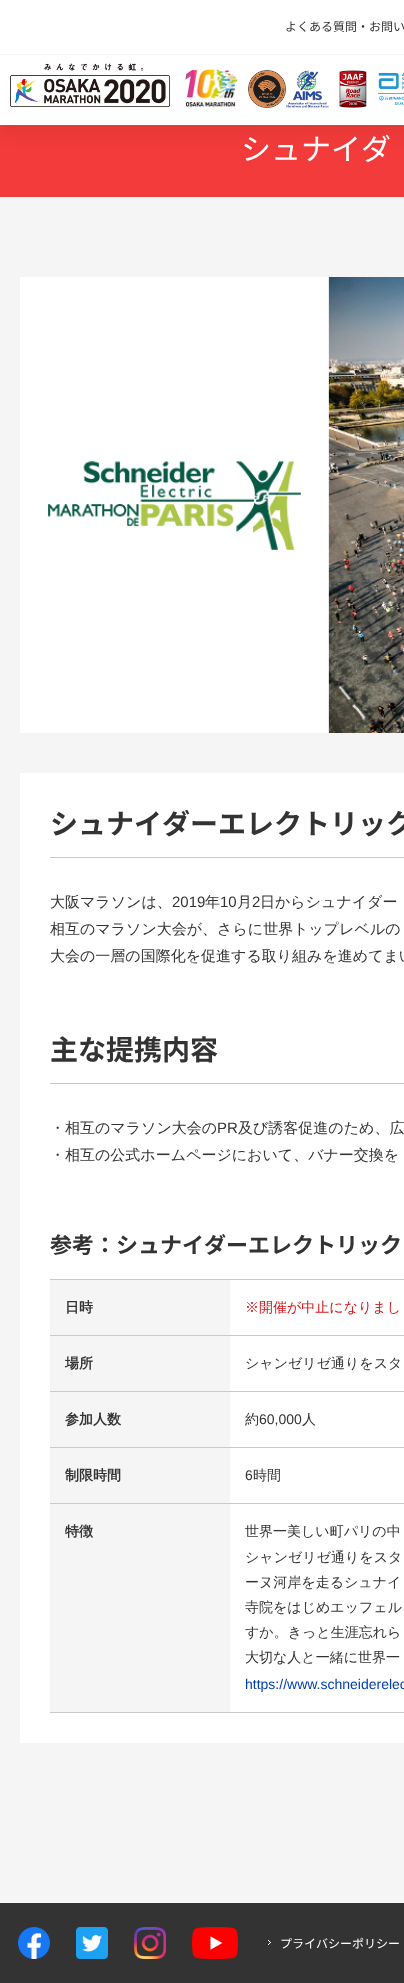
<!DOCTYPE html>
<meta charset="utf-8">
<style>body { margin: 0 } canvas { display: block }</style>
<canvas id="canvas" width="404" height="1983"></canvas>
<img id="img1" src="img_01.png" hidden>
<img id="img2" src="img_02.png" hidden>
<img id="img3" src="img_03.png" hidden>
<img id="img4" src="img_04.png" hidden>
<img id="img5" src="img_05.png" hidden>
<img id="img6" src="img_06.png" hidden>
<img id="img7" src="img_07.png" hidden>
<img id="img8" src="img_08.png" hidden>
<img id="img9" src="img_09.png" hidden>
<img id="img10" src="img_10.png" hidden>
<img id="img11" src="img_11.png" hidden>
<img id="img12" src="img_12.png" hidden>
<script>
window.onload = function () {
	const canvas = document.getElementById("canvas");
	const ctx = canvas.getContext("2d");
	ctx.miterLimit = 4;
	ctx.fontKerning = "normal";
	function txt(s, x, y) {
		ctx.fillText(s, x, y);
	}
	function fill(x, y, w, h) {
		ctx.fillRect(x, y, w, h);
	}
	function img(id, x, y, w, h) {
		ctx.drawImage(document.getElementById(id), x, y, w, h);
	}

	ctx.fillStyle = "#F5F5F5";
	fill(0, 0, 404, 1983);
	ctx.fillStyle = "#F33B3B";
	fill(0, 125, 404, 72);
	ctx.fillStyle = "rgba(0, 0, 0, 0.05)";
	ctx.filter = "blur(7.5px)";
	ctx.beginPath();
	ctx.rect(-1, 9, 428, 127);
	ctx.fill();
	ctx.filter = "none";
	ctx.fillStyle = "#FFFFFF";
	fill(0, 0, 404, 54);
	ctx.fillStyle = "#F5F5F5";
	fill(0, 54, 404, 1);
	ctx.fillStyle = "#FFFFFF";
	fill(0, 55, 404, 70);
	img("img1", 10, 63, 160, 44);
	img("img2", 185, 69, 53, 38);
	img("img3", 248, 70, 38, 38);
	img("img4", 286, 70, 43, 38);
	img("img5", 339, 70, 28, 38);
	img("img6", 378, 73, 26, 32);
	img("img7", 20, 277, 384, 456);
	fill(20, 773, 384, 970);
	ctx.fillStyle = "#CACACA";
	fill(50, 857, 354, 1);
	fill(50, 1083, 354, 1);
	fill(50, 1712, 354, 1);
	fill(50, 1279, 354, 1);
	ctx.fillStyle = "#F5F5F5";
	fill(50, 1280, 180, 55);
	ctx.fillStyle = "#CACACA";
	fill(50, 1335, 354, 1);
	ctx.fillStyle = "#F5F5F5";
	fill(50, 1336, 180, 55);
	ctx.fillStyle = "#CACACA";
	fill(50, 1391, 354, 1);
	ctx.fillStyle = "#F5F5F5";
	fill(50, 1392, 180, 55);
	ctx.fillStyle = "#CACACA";
	fill(50, 1447, 354, 1);
	ctx.fillStyle = "#F5F5F5";
	fill(50, 1448, 180, 55);
	ctx.fillStyle = "#CACACA";
	fill(50, 1503, 354, 1);
	ctx.fillStyle = "#F5F5F5";
	fill(50, 1504, 180, 208);
	ctx.fillStyle = "#333333";
	fill(0, 1903, 404, 80);
	img("img8", 18, 1927, 32, 32);
	img("img9", 76, 1927, 32, 32);
	img("img10", 134, 1927, 32, 32);
	img("img11", 192, 1927, 46, 32);
	img("img12", 268, 1940, 3, 5);
	ctx.font = "12px Noto Sans JP";
	txt("よくある質問・お問い", 285, 31);
	ctx.font = "30px Noto Sans JP";
	ctx.fillStyle = "#FFFFFF";
	txt("シュナイダ", 241, 160);
	ctx.font = "bold 28px Noto Sans JP";
	ctx.fillStyle = "#333333";
	txt("シュナイダーエレクトリック", 50, 834);
	ctx.font = "500 15px WenQuanYi Zen Hei";
	txt("大阪マラソンは、", 50, 907);
	ctx.font = "15px Liberation Sans";
	txt("2019", 172, 907);
	ctx.font = "500 15px WenQuanYi Zen Hei";
	txt("年", 205, 907);
	ctx.font = "15px Liberation Sans";
	txt("10", 220, 907);
	ctx.font = "500 15px WenQuanYi Zen Hei";
	txt("月", 237, 907);
	ctx.font = "15px Liberation Sans";
	txt("2", 252, 907);
	ctx.font = "500 15px WenQuanYi Zen Hei";
	txt("日からシュナイダー", 260, 907);
	txt("相互のマラソン大会が、さらに世界トップレベルの", 50, 934);
	txt("大会の一層の国際化を促進する取り組みを進めてまい", 50, 961);
	ctx.font = "bold 28px Noto Sans JP";
	txt("主な提携内容", 50, 1060);
	ctx.font = "500 15px WenQuanYi Zen Hei";
	txt("・相互のマラソン大会の", 50, 1133);
	ctx.font = "15px Liberation Sans";
	txt("PR", 217, 1133);
	ctx.font = "500 15px WenQuanYi Zen Hei";
	txt("及び誘客促進のため、広", 238, 1133);
	txt("・相互の公式ホームページにおいて、バナー交換を", 50, 1160);
	ctx.font = "bold 22px Noto Sans JP";
	txt("参考：シュナイダーエレクトリック", 50, 1253);
	ctx.font = "bold 14px WenQuanYi Zen Hei";
	txt("日時", 65, 1312);
	ctx.font = "500 14px WenQuanYi Zen Hei";
	ctx.fillStyle = "#D71418";
	txt("※開催が中止になりまし", 245, 1312);
	ctx.font = "bold 14px WenQuanYi Zen Hei";
	ctx.fillStyle = "#333333";
	txt("場所", 65, 1368);
	ctx.font = "500 14px WenQuanYi Zen Hei";
	txt("シャンゼリゼ通りをスタ", 245, 1368);
	ctx.font = "bold 14px WenQuanYi Zen Hei";
	txt("参加人数", 65, 1424);
	ctx.font = "500 14px WenQuanYi Zen Hei";
	txt("約", 245, 1424);
	ctx.font = "14px Liberation Sans";
	txt("60,000", 259, 1424);
	ctx.font = "500 14px WenQuanYi Zen Hei";
	txt("人", 302, 1424);
	ctx.font = "bold 14px WenQuanYi Zen Hei";
	txt("制限時間", 65, 1480);
	ctx.font = "14px Liberation Sans";
	txt("6", 245, 1480);
	ctx.font = "500 14px WenQuanYi Zen Hei";
	txt("時間", 253, 1480);
	ctx.font = "bold 14px WenQuanYi Zen Hei";
	txt("特徴", 65, 1536);
	ctx.font = "500 14px WenQuanYi Zen Hei";
	txt("世界一美しい町パリの中", 245, 1536);
	txt("シャンゼリゼ通りをスタ", 245, 1562);
	txt("ーヌ河岸を走るシュナイ", 245, 1587);
	txt("寺院をはじめエッフェル", 245, 1612);
	txt("すか。きっと生涯忘れら", 245, 1637);
	txt("大切な人と一緒に世界一", 245, 1662);
	ctx.font = "14px Liberation Sans";
	ctx.fillStyle = "#003CB7";
	txt("https://www.schneiderelec", 245, 1689);
	ctx.font = "12px Noto Sans JP";
	ctx.fillStyle = "#FFFFFF";
	txt("プライバシーポリシー", 280, 1948);
};
</script>
